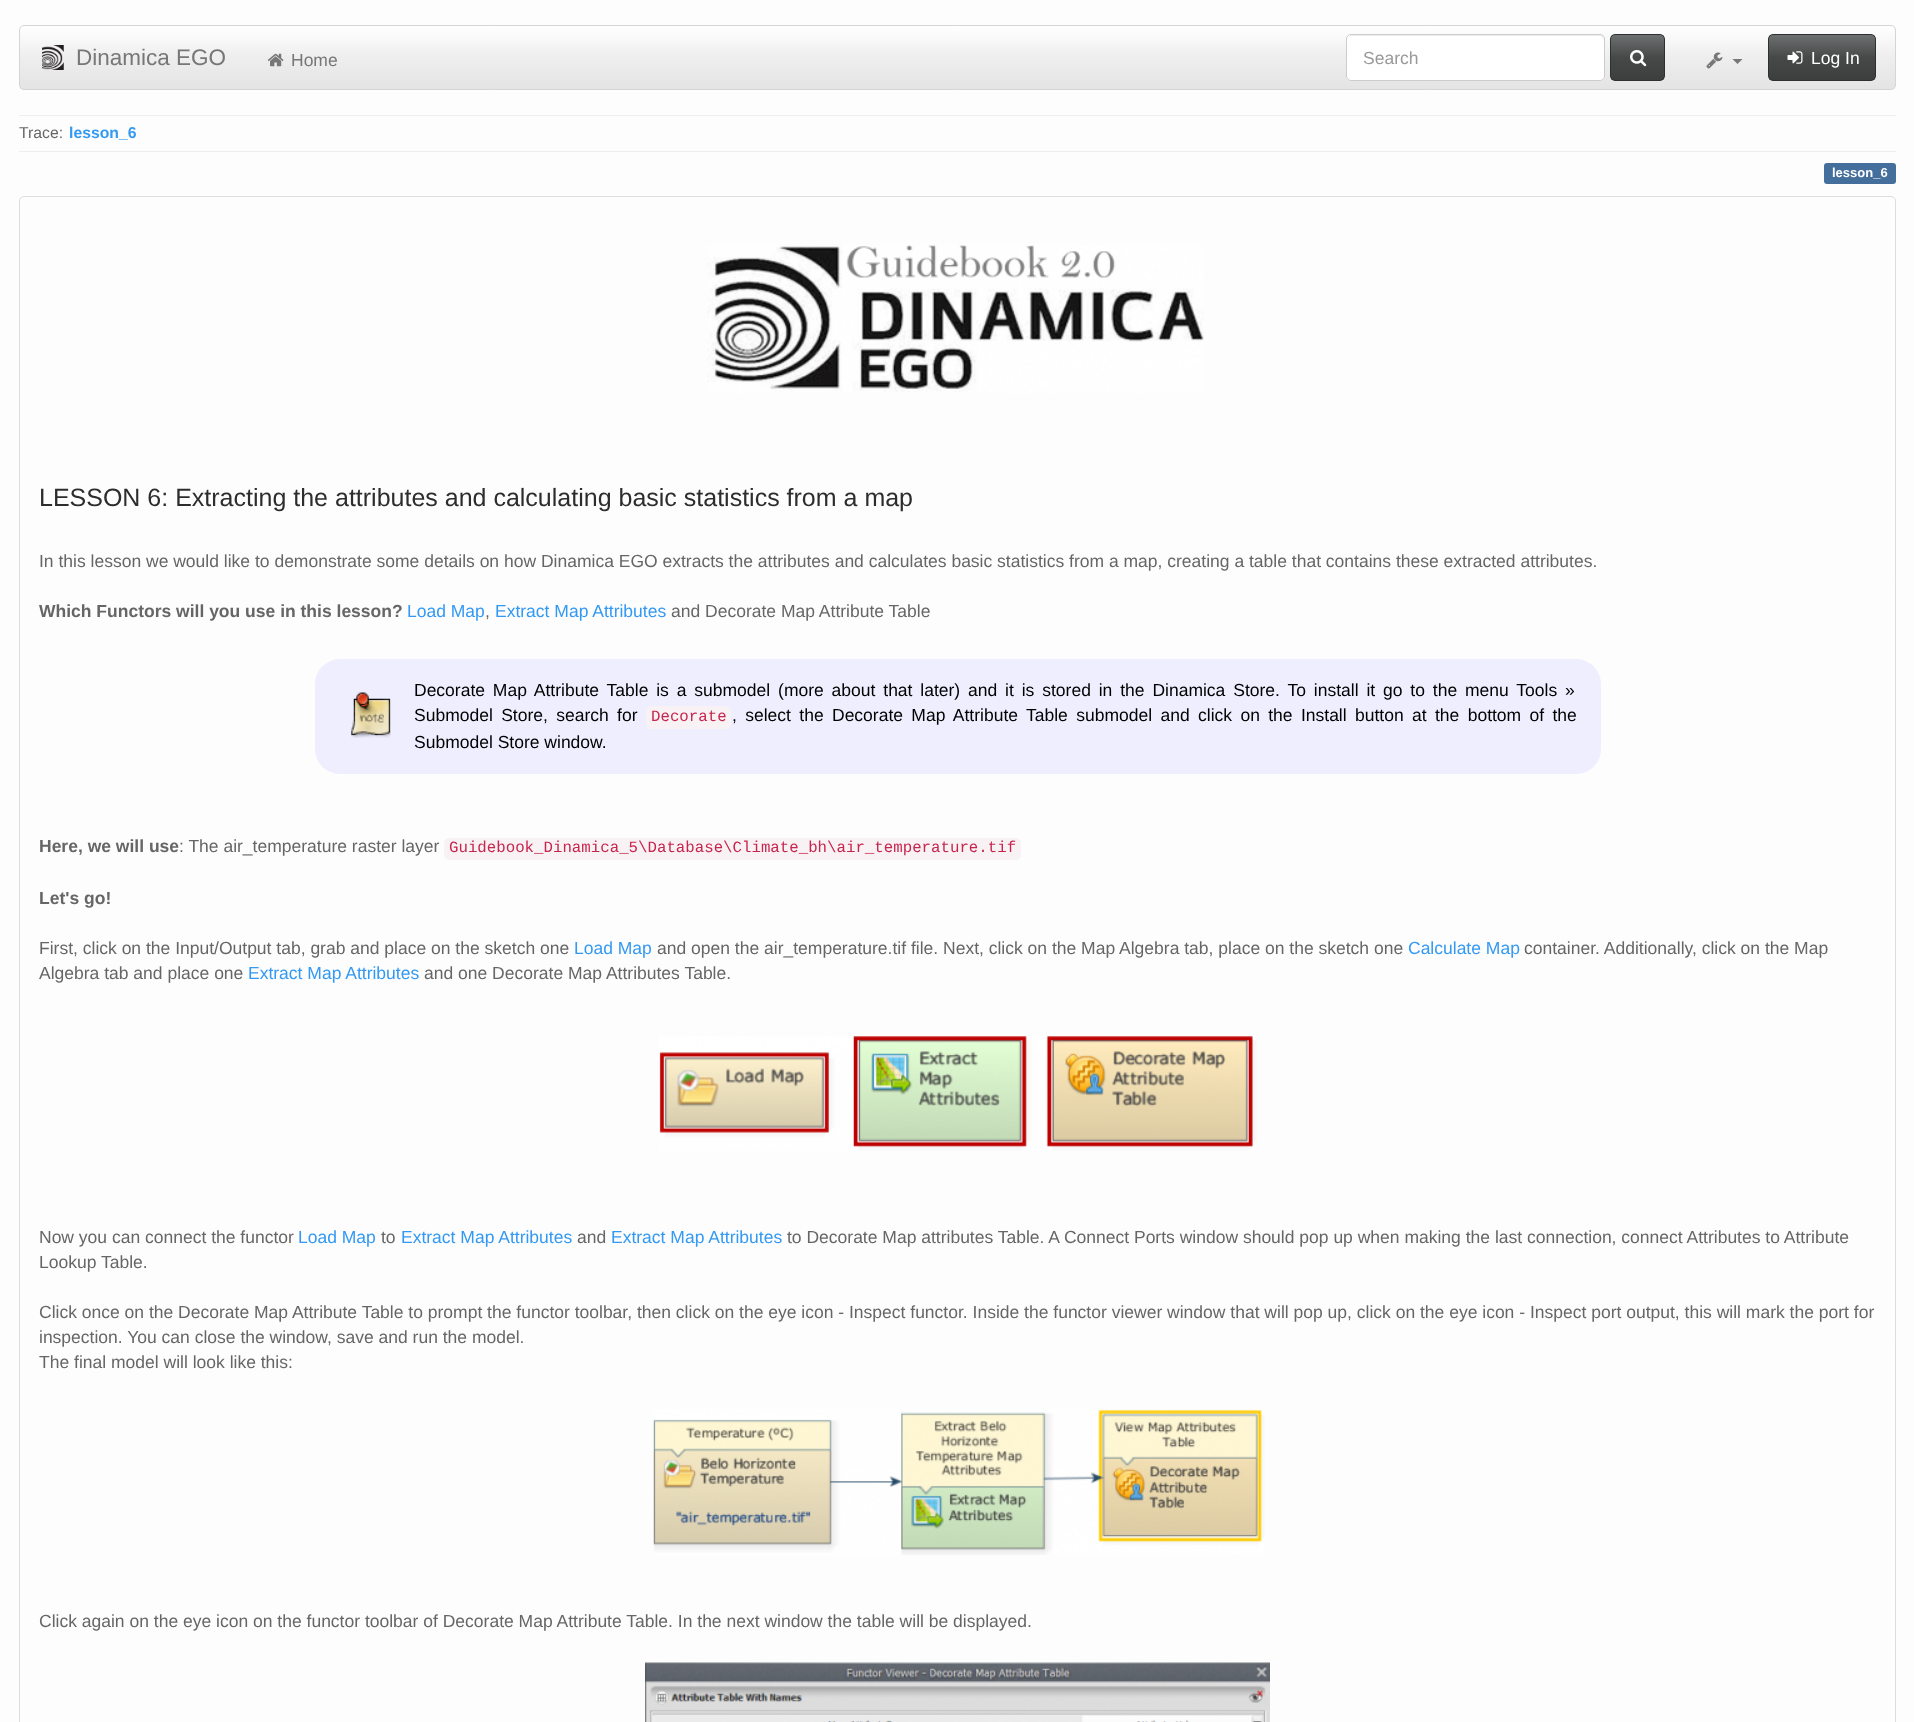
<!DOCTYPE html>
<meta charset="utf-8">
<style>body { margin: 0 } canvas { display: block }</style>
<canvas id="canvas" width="1914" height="1722"></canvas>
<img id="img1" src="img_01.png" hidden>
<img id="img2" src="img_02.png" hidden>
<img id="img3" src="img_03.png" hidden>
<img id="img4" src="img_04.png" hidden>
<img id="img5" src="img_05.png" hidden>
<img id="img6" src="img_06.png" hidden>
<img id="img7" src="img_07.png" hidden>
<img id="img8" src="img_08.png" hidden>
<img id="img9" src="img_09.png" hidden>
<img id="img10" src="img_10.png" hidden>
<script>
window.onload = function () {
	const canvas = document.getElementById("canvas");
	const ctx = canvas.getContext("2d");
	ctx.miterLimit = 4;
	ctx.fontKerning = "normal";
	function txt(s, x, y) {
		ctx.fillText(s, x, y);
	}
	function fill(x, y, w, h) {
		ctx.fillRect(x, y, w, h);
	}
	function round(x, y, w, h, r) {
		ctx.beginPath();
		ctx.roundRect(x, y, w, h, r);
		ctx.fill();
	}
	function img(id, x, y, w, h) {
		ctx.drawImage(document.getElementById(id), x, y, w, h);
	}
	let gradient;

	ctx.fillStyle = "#FDFDFD";
	fill(0, 0, 1914, 1722);
	ctx.save();
	ctx.beginPath();
	ctx.roundRect(19, 25, 1877, 65, 5);
	ctx.clip();
	gradient = ctx.createLinearGradient(958, 26, 958, 89);
	gradient.addColorStop(0, "#FFFFFF");
	gradient.addColorStop(0.5, "#EEEEEE");
	gradient.addColorStop(1, "#E4E4E4");
	ctx.fillStyle = gradient;
	fill(20, 26, 1875, 63);
	ctx.restore();
	ctx.beginPath();
	ctx.roundRect(19.5, 25.5, 1876, 64, 4.5);
	ctx.strokeStyle = "#D5D5D5";
	ctx.stroke();
	img("img1", 42, 45, 22, 25);
	img("img2", 267, 53, 17, 14);
	ctx.fillStyle = "#FFFFFF";
	round(1346, 34, 259, 47, 5);
	ctx.fillStyle = "#ECECEC";
	ctx.beginPath();
	ctx.moveTo(1351, 36);
	ctx.lineTo(1601, 36);
	ctx.lineTo(1603, 38);
	ctx.lineTo(1604, 40);
	ctx.lineTo(1604, 39);
	ctx.bezierCurveTo(1604, 37, 1602, 35, 1600, 35);
	ctx.lineTo(1352, 35);
	ctx.bezierCurveTo(1350, 35, 1348, 37, 1348, 39);
	ctx.lineTo(1348, 40);
	ctx.bezierCurveTo(1348, 38, 1349, 36, 1351, 36);
	ctx.closePath();
	ctx.fill();
	ctx.beginPath();
	ctx.roundRect(1346.5, 34.5, 258, 46, 4.5);
	ctx.strokeStyle = "#CCCCCC";
	ctx.stroke();
	ctx.save();
	ctx.beginPath();
	ctx.roundRect(1610, 34, 55, 47, 5);
	ctx.clip();
	gradient = ctx.createLinearGradient(1638, 35, 1638, 80);
	gradient.addColorStop(0, "#6D7070");
	gradient.addColorStop(0.5, "#474949");
	gradient.addColorStop(1, "#3D3F3F");
	ctx.fillStyle = gradient;
	fill(1611, 35, 53, 45);
	ctx.restore();
	ctx.beginPath();
	ctx.roundRect(1610.5, 34.5, 54, 46, 4.5);
	ctx.strokeStyle = "#2E2F2F";
	ctx.stroke();
	img("img3", 1630, 50, 17, 17);
	img("img4", 1706, 52, 17, 17);
	ctx.fillStyle = "#777777";
	ctx.beginPath();
	ctx.moveTo(1732.5, 59);
	ctx.lineTo(1742.5, 59);
	ctx.lineTo(1737.5, 64);
	ctx.closePath();
	ctx.fill();
	ctx.save();
	ctx.beginPath();
	ctx.roundRect(1768, 34, 108, 47, 5);
	ctx.clip();
	gradient = ctx.createLinearGradient(1822, 35, 1822, 80);
	gradient.addColorStop(0, "#6D7070");
	gradient.addColorStop(0.5, "#474949");
	gradient.addColorStop(1, "#3D3F3F");
	ctx.fillStyle = gradient;
	fill(1769, 35, 106, 45);
	ctx.restore();
	ctx.beginPath();
	ctx.roundRect(1768.5, 34.5, 107, 46, 4.5);
	ctx.stroke();
	img("img5", 1787, 51, 16, 13);
	ctx.fillStyle = "#EEEEEE";
	fill(19, 115, 1877, 1);
	fill(19, 151, 1877, 1);
	ctx.fillStyle = "#446E9B";
	round(1824, 163, 72, 21, 3);
	ctx.beginPath();
	ctx.roundRect(19.5, 196.5, 1876, 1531, 4.5);
	ctx.strokeStyle = "#DDDDDD";
	ctx.stroke();
	img("img6", 707, 245, 497, 148);
	ctx.fillStyle = "#EEEEFF";
	round(315, 659, 1286, 115, 25);
	img("img7", 351, 692, 40, 46);
	ctx.fillStyle = "#F9F2F4";
	round(646, 706, 85, 23, 5);
	round(444, 838, 577, 22, 5);
	img("img8", 659, 1036, 598, 115);
	img("img9", 653, 1409, 612, 146);
	img("img10", 645, 1662, 625, 60);
	ctx.font = "22.5px Liberation Sans";
	ctx.fillStyle = "#777777";
	txt("Dinamica EGO", 76, 65);
	ctx.font = "17.5px Liberation Sans";
	txt("Home", 291, 66);
	ctx.fillStyle = "#999999";
	txt("Search", 1363, 64);
	ctx.fillStyle = "#FFFFFF";
	txt("Log In", 1811, 64);
	ctx.font = "15.75px Liberation Sans";
	ctx.fillStyle = "#666666";
	txt("Trace:", 19, 138);
	ctx.font = "bold 15.75px Liberation Sans";
	ctx.fillStyle = "#3399F3";
	txt("lesson_6", 69, 138);
	ctx.font = "bold 13px Liberation Sans";
	ctx.fillStyle = "#FFFFFF";
	txt("lesson_6", 1832, 177);
	ctx.font = "25px Liberation Sans";
	ctx.fillStyle = "#2D2D2D";
	txt("LESSON 6: Extracting the attributes and calculating basic statistics from a map", 39, 506);
	ctx.font = "17.5px Liberation Sans";
	ctx.fillStyle = "#666666";
	txt("In this lesson we would like to demonstrate some details on how Dinamica EGO extracts the attributes and calculates basic statistics from a map, creating a table that contains these extracted attributes.", 39, 567);
	ctx.font = "bold 17.5px Liberation Sans";
	txt("Which Functors will you use in this lesson?", 39, 617);
	ctx.font = "17.5px Liberation Sans";
	ctx.fillStyle = "#3399F3";
	txt("Load Map", 407, 617);
	ctx.fillStyle = "#666666";
	txt(",", 485, 617);
	ctx.fillStyle = "#3399F3";
	txt("Extract Map Attributes", 495, 617);
	ctx.fillStyle = "#666666";
	txt("and Decorate Map Attribute Table", 671, 617);
	ctx.wordSpacing = "3px";
	ctx.fillStyle = "#000000";
	txt("Decorate Map Attribute Table is a submodel (more about that later) and it is stored in the Dinamica Store. To install it go to the menu Tools »", 414, 696);
	ctx.wordSpacing = "3.5px";
	txt("Submodel Store, search for", 414, 721);
	ctx.wordSpacing = "0px";
	ctx.font = "15.75px Liberation Mono";
	ctx.fillStyle = "#C7254E";
	txt("Decorate", 651, 721);
	ctx.wordSpacing = "3.5px";
	ctx.font = "17.5px Liberation Sans";
	ctx.fillStyle = "#000000";
	txt(", select the Decorate Map Attribute Table submodel and click on the Install button at the bottom of the", 732, 721);
	ctx.wordSpacing = "0px";
	txt("Submodel Store window.", 414, 748);
	ctx.font = "bold 17.5px Liberation Sans";
	ctx.fillStyle = "#666666";
	txt("Here, we will use", 39, 852);
	ctx.font = "17.5px Liberation Sans";
	txt(": The air_temperature raster layer", 179, 852);
	ctx.font = "15.75px Liberation Mono";
	ctx.fillStyle = "#C7254E";
	txt("Guidebook_Dinamica_5\\Database\\Climate_bh\\air_temperature.tif", 449, 852);
	ctx.font = "bold 17.5px Liberation Sans";
	ctx.fillStyle = "#666666";
	txt("Let's go!", 39, 904);
	ctx.font = "17.5px Liberation Sans";
	txt("First, click on the Input/Output tab, grab and place on the sketch one", 39, 954);
	ctx.fillStyle = "#3399F3";
	txt("Load Map", 574, 954);
	ctx.fillStyle = "#666666";
	txt("and open the air_temperature.tif file. Next, click on the Map Algebra tab, place on the sketch one", 657, 954);
	ctx.fillStyle = "#3399F3";
	txt("Calculate Map", 1408, 954);
	ctx.fillStyle = "#666666";
	txt("container. Additionally, click on the Map", 1524, 954);
	txt("Algebra tab and place one", 39, 979);
	ctx.fillStyle = "#3399F3";
	txt("Extract Map Attributes", 248, 979);
	ctx.fillStyle = "#666666";
	txt("and one Decorate Map Attributes Table.", 424, 979);
	txt("Now you can connect the functor", 39, 1243);
	ctx.fillStyle = "#3399F3";
	txt("Load Map", 298, 1243);
	ctx.fillStyle = "#666666";
	txt("to", 381, 1243);
	ctx.fillStyle = "#3399F3";
	txt("Extract Map Attributes", 401, 1243);
	ctx.fillStyle = "#666666";
	txt("and", 577, 1243);
	ctx.fillStyle = "#3399F3";
	txt("Extract Map Attributes", 611, 1243);
	ctx.fillStyle = "#666666";
	txt("to Decorate Map attributes Table. A Connect Ports window should pop up when making the last connection, connect Attributes to Attribute", 787, 1243);
	txt("Lookup Table.", 39, 1268);
	txt("Click once on the Decorate Map Attribute Table to prompt the functor toolbar, then click on the eye icon - Inspect functor. Inside the functor viewer window that will pop up, click on the eye icon - Inspect port output, this will mark the port for", 39, 1318);
	txt("inspection. You can close the window, save and run the model.", 39, 1343);
	txt("The final model will look like this:", 39, 1368);
	txt("Click again on the eye icon on the functor toolbar of Decorate Map Attribute Table. In the next window the table will be displayed.", 39, 1627);
};
</script>
